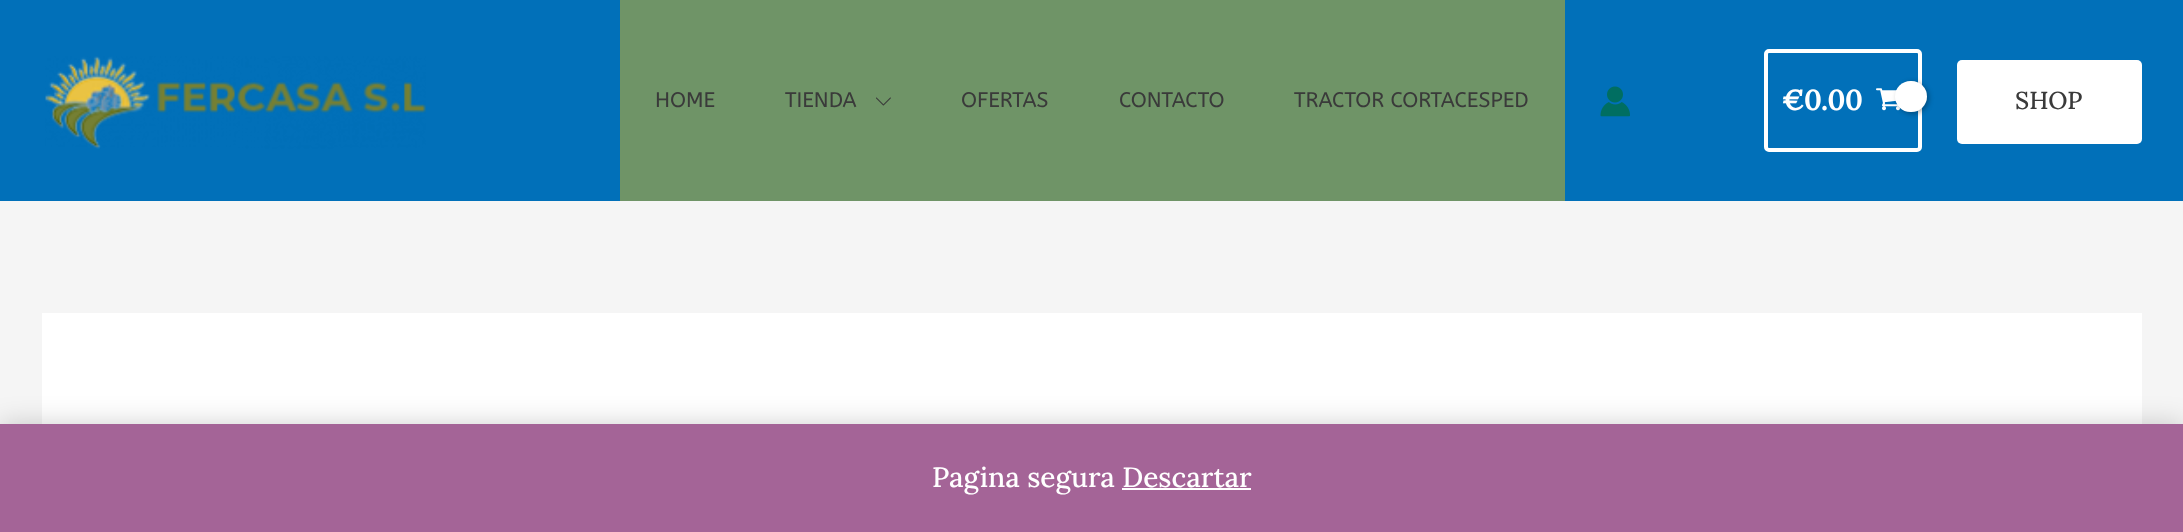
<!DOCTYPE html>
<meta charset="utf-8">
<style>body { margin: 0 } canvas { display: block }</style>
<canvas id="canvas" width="2183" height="532"></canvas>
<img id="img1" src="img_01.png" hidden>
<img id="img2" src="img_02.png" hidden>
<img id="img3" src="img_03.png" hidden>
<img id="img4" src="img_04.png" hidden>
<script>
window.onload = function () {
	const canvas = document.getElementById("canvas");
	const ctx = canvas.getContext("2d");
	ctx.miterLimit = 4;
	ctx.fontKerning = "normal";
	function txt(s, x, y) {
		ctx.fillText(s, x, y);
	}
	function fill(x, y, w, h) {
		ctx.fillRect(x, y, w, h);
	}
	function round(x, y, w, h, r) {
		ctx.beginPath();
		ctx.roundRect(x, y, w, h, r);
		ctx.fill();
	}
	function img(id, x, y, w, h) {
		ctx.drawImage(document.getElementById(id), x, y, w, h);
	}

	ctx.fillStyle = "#F5F5F5";
	fill(0, 0, 2183, 532);
	ctx.fillStyle = "#0170B9";
	fill(0, 0, 2183, 201);
	img("img1", 45, 56, 381, 93);
	ctx.fillStyle = "#6F9467";
	fill(620, 0, 945, 201);
	img("img2", 876, 97, 15, 9);
	img("img3", 1600, 86, 30, 31);
	ctx.beginPath();
	ctx.roundRect(1766, 51, 154, 99, 3);
	ctx.strokeStyle = "#FFFFFF";
	ctx.lineWidth = 4;
	ctx.stroke();
	img("img4", 1876, 88, 24, 23);
	ctx.fillStyle = "rgba(0, 0, 0, 0.3)";
	ctx.filter = "blur(2.5px)";
	ctx.beginPath();
	ctx.roundRect(1897, 82, 32, 32, 16);
	ctx.fill();
	ctx.filter = "none";
	ctx.fillStyle = "#FFFFFF";
	round(1895, 81, 32, 31, 15.5);
	round(1957, 60, 185, 84, 5);
	fill(42, 313, 2100, 111);
	ctx.fillStyle = "rgba(0, 0, 0, 0.2)";
	ctx.filter = "blur(14px)";
	ctx.beginPath();
	ctx.rect(0, 425, 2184, 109);
	ctx.fill();
	ctx.filter = "none";
	ctx.fillStyle = "#A46497";
	fill(0, 424, 2183, 108);
	ctx.fillStyle = "#FFFFFF";
	fill(1122, 488, 129, 2);
	ctx.font = "21px ABeeZee";
	ctx.fillStyle = "#3A3A3A";
	txt("HOME", 655, 107);
	txt("TIENDA", 785, 107);
	txt("OFERTAS", 961, 107);
	txt("CONTACTO", 1119, 107);
	txt("TRACTOR CORTACESPED", 1294, 107);
	ctx.font = "bold 28px Lora";
	ctx.fillStyle = "#FFFFFF";
	txt("€0.00", 1782, 110);
	ctx.font = "500 24.5px Lora";
	ctx.fillStyle = "#3A3A3A";
	txt("SHOP", 2015, 109);
	ctx.font = "500 28px Lora";
	ctx.fillStyle = "#FFFFFF";
	txt("Pagina segura Descartar", 932, 487);
};
</script>
